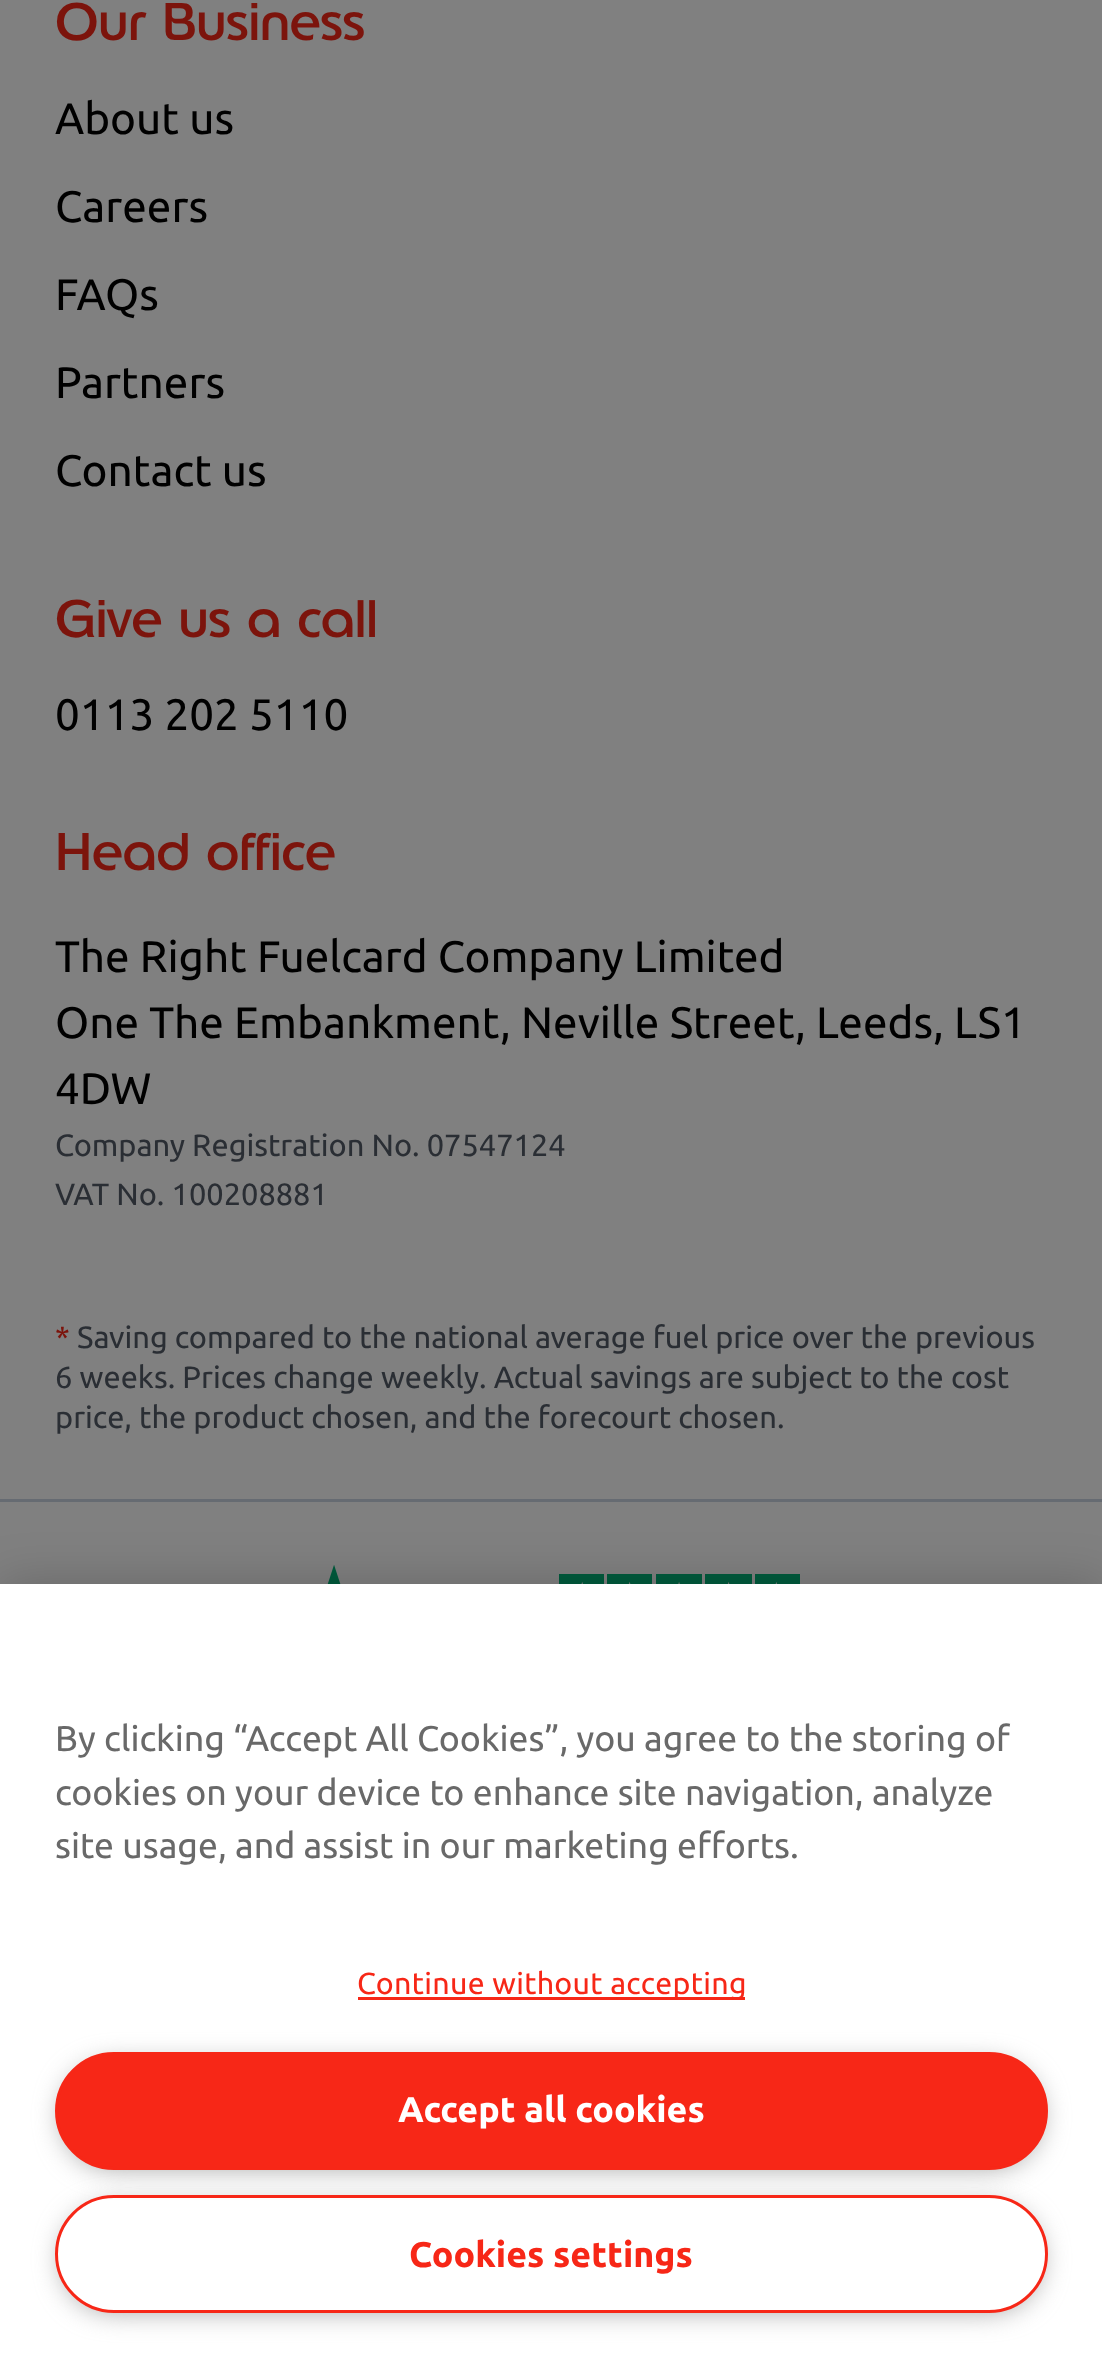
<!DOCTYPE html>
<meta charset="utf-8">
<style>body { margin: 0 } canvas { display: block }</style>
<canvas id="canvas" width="1102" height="2356"></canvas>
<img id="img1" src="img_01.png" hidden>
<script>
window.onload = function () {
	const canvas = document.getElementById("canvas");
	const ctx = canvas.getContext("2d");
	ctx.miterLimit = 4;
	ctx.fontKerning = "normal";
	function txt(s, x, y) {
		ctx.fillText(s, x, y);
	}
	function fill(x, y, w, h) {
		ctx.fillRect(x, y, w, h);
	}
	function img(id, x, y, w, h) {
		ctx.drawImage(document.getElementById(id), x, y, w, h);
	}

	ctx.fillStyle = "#808080";
	fill(0, 0, 1102, 2356);
	ctx.fillStyle = "#666B72";
	fill(0, 1499, 1102, 3);
	img("img1", 327, 1565, 473, 19);
	ctx.fillStyle = "rgba(0, 0, 0, 0.2)";
	ctx.filter = "blur(25px)";
	ctx.beginPath();
	ctx.rect(0, 1584, 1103, 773);
	ctx.fill();
	ctx.filter = "none";
	ctx.fillStyle = "#FFFFFF";
	fill(0, 1584, 1102, 772);
	ctx.fillStyle = "#F72717";
	fill(358, 1997, 387, 3);
	ctx.fillStyle = "#999999";
	ctx.filter = "blur(14px)";
	ctx.beginPath();
	ctx.roundRect(63, 2065, 977, 102, 51);
	ctx.fill();
	ctx.filter = "none";
	ctx.fillStyle = "#F72717";
	ctx.beginPath();
	ctx.roundRect(56.5, 2053.5, 990, 115, 57.5);
	ctx.fill();
	ctx.strokeStyle = "#F72717";
	ctx.lineWidth = 3;
	ctx.stroke();
	ctx.fillStyle = "#999999";
	ctx.filter = "blur(14px)";
	ctx.beginPath();
	ctx.roundRect(63, 2208, 977, 102, 51);
	ctx.fill();
	ctx.filter = "none";
	ctx.fillStyle = "#FFFFFF";
	ctx.beginPath();
	ctx.roundRect(56.5, 2196.5, 990, 115, 57.5);
	ctx.fill();
	ctx.stroke();
	ctx.letterSpacing = "-0.1px";
	ctx.font = "52.25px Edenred";
	ctx.fillStyle = "#7C140C";
	txt("Our Business", 55, 40);
	ctx.letterSpacing = "0px";
	ctx.font = "44px Ubuntu";
	ctx.fillStyle = "#000000";
	txt("About us", 55, 134);
	txt("Careers", 55, 222);
	txt("FAQs", 55, 310);
	txt("Partners", 55, 398);
	txt("Contact us", 55, 486);
	ctx.letterSpacing = "-0.1px";
	ctx.font = "52.25px Edenred";
	ctx.fillStyle = "#7C140C";
	txt("Give us a call", 55, 637);
	ctx.letterSpacing = "0px";
	ctx.font = "44px Ubuntu";
	ctx.fillStyle = "#000000";
	txt("0113 202 5110", 55, 730);
	ctx.letterSpacing = "-0.1px";
	ctx.font = "52.25px Edenred";
	ctx.fillStyle = "#7C140C";
	txt("Head office", 55, 870);
	ctx.letterSpacing = "0px";
	ctx.font = "44px Ubuntu";
	ctx.fillStyle = "#000000";
	txt("The Right Fuelcard Company Limited", 55, 972);
	txt("One The Embankment, Neville Street, Leeds, LS1", 55, 1038);
	txt("4DW", 55, 1104);
	ctx.font = "30.8px Ubuntu";
	ctx.fillStyle = "#2A2E34";
	txt("Company Registration No. 07547124", 55, 1156);
	txt("VAT No. 100208881", 55, 1205);
	ctx.fillStyle = "#7C140C";
	txt("*", 55, 1348);
	ctx.fillStyle = "#2A2E34";
	txt("Saving compared to the national average fuel price over the previous", 77, 1348);
	txt("6 weeks. Prices change weekly. Actual savings are subject to the cost", 55, 1388);
	txt("price, the product chosen, and the forecourt chosen.", 55, 1428);
	ctx.font = "35.75px Ubuntu";
	ctx.fillStyle = "#696969";
	txt("By clicking “Accept All Cookies”, you agree to the storing of", 55, 1751);
	txt("cookies on your device to enhance site navigation, analyze", 55, 1805);
	txt("site usage, and assist in our marketing efforts.", 55, 1858);
	ctx.letterSpacing = "0.3px";
	ctx.font = "30.4px Ubuntu";
	ctx.fillStyle = "#F72717";
	txt("Continue without accepting", 357, 1994);
	ctx.letterSpacing = "0px";
	ctx.font = "bold 35.75px Ubuntu";
	ctx.fillStyle = "#FFFFFF";
	txt("Accept all cookies", 398, 2122);
	ctx.fillStyle = "#F72717";
	txt("Cookies settings", 409, 2267);
};
</script>
